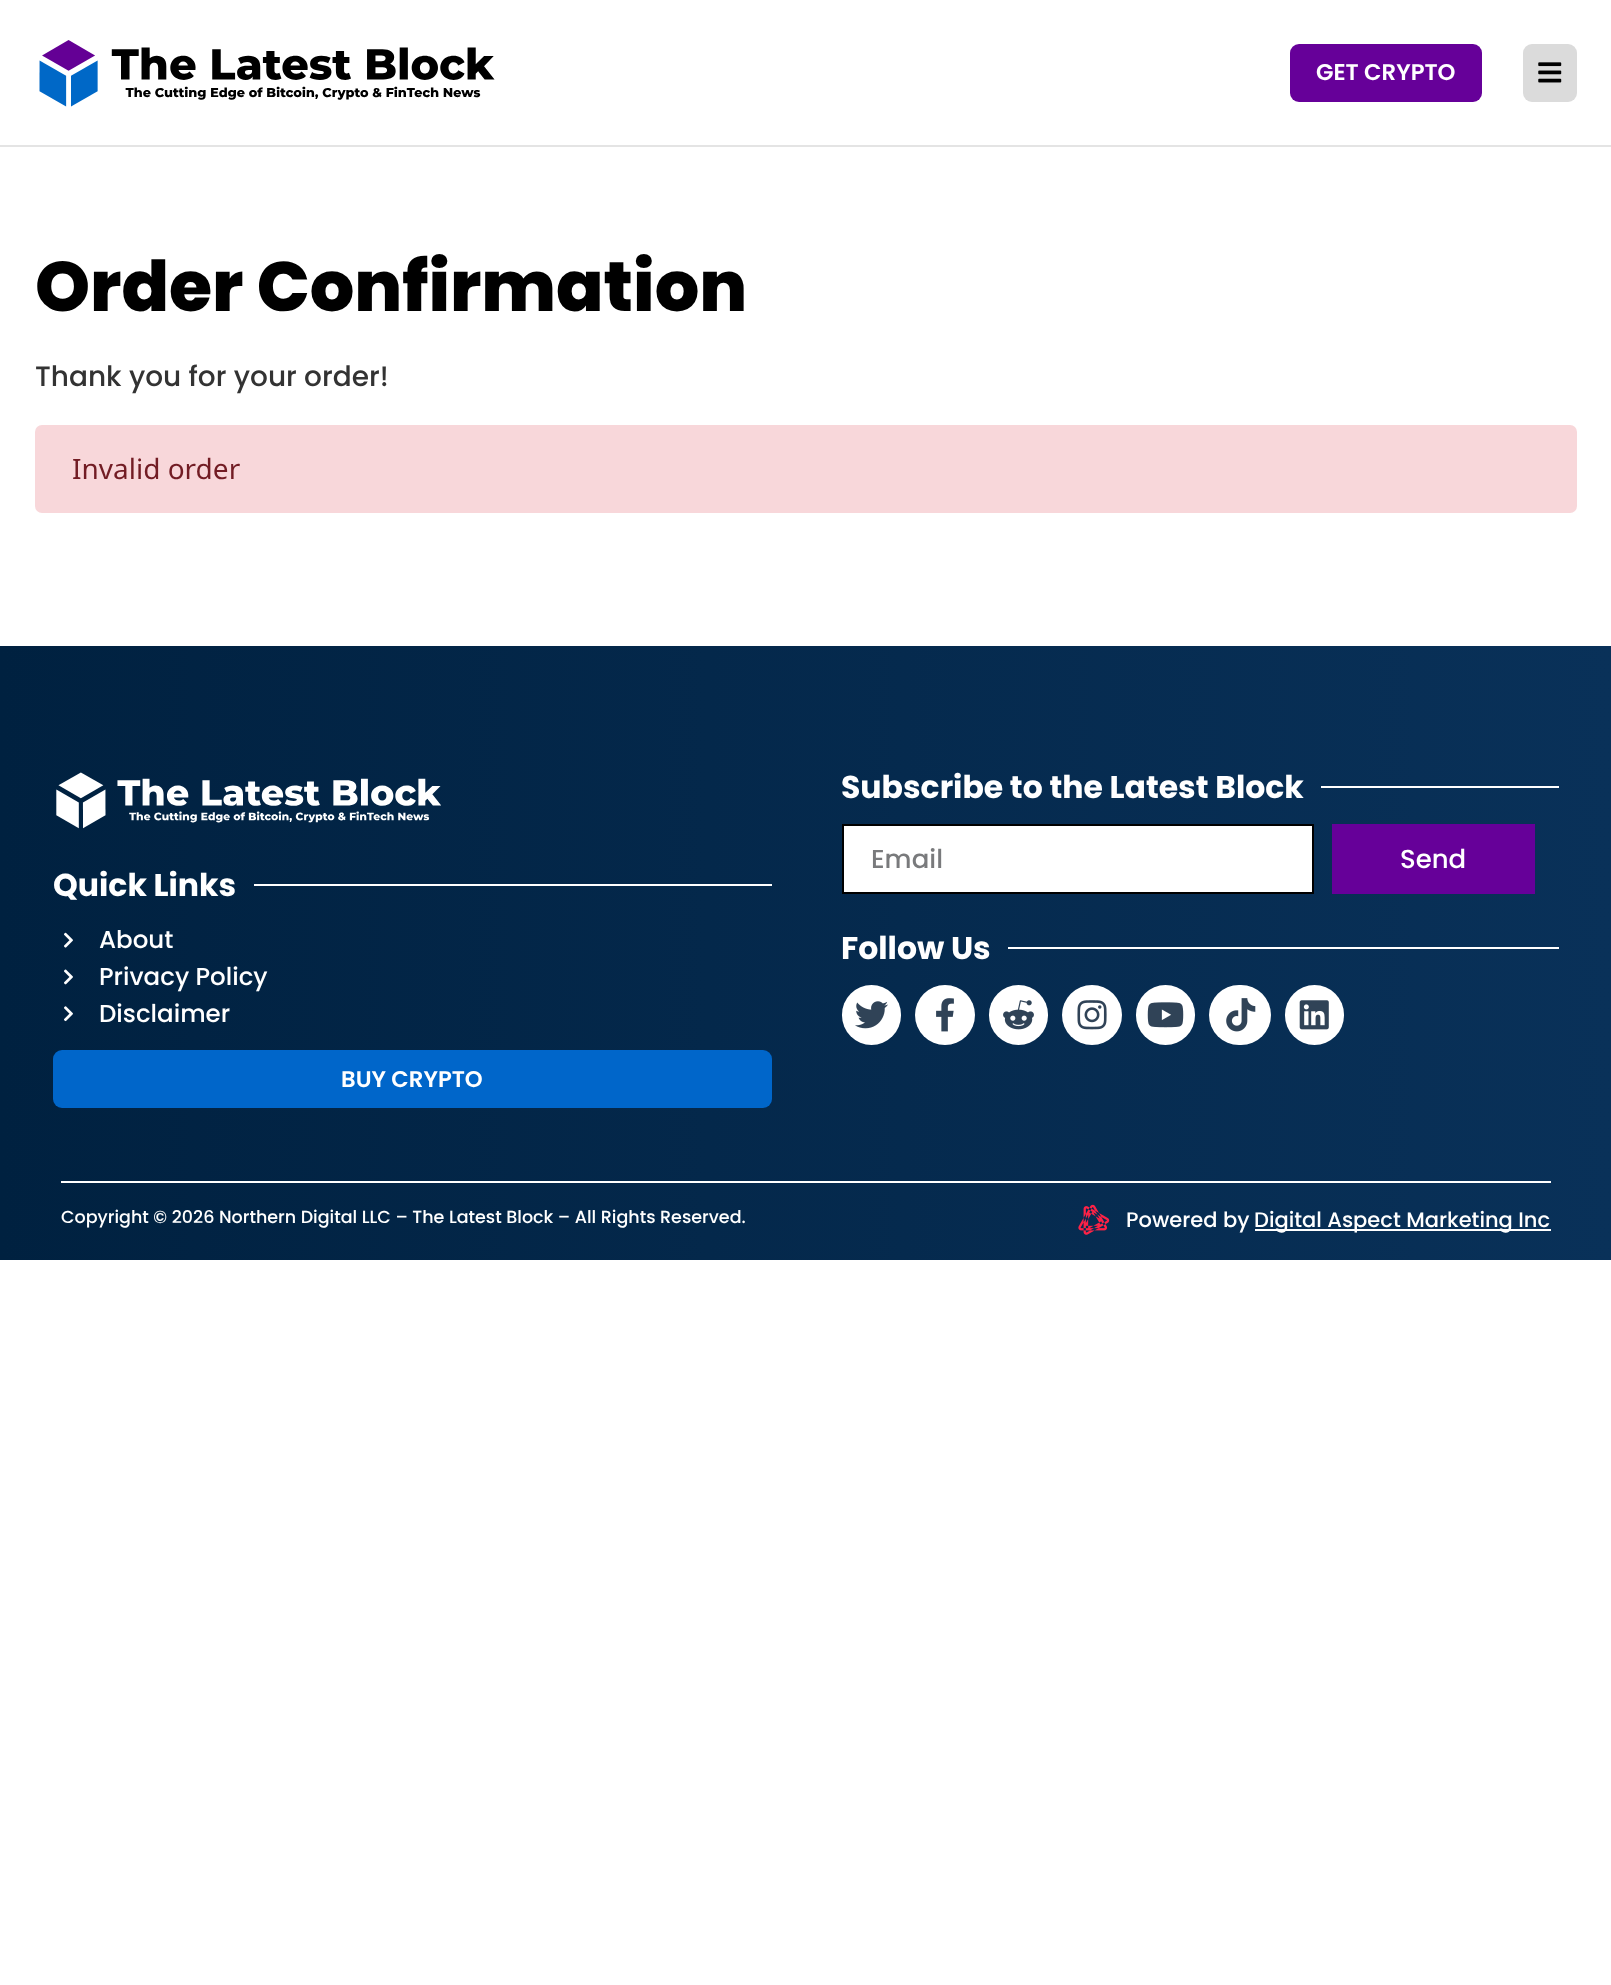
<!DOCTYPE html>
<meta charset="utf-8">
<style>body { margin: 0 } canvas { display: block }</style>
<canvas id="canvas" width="1611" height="1985"></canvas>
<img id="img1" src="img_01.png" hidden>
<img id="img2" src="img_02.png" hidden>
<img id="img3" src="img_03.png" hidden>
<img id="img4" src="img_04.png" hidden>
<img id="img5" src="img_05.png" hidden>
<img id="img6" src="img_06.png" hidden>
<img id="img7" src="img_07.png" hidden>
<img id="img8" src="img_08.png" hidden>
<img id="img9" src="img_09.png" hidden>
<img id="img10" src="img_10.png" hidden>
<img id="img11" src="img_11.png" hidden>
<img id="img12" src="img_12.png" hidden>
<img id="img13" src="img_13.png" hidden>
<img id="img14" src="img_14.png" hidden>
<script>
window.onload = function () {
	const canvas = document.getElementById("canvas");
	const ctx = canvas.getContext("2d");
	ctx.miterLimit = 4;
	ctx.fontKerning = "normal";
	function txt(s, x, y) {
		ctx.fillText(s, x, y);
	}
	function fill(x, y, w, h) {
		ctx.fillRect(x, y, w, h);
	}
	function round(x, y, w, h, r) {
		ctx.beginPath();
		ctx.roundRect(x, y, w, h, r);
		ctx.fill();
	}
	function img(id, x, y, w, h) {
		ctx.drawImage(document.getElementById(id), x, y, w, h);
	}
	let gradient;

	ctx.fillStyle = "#FFFFFF";
	fill(0, 0, 1611, 1985);
	ctx.fillStyle = "#E4E4E4";
	fill(0, 145, 1611, 2);
	img("img1", 39, 40, 456, 67);
	ctx.fillStyle = "#660099";
	round(1290, 44, 192, 58, 9);
	ctx.fillStyle = "#DBDBDB";
	round(1523, 44, 54, 58, 9);
	img("img2", 1538, 62, 24, 21);
	ctx.fillStyle = "#F8D7DA";
	round(35, 425, 1542, 88, 7);
	gradient = ctx.createLinearGradient(0, 953, 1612, 953);
	gradient.addColorStop(0, "#002140");
	gradient.addColorStop(1, "#093159");
	ctx.fillStyle = gradient;
	fill(0, 646, 1611, 614);
	img("img3", 56, 772, 385, 57);
	ctx.fillStyle = "#FFFFFF";
	fill(254, 884, 518, 2);
	img("img4", 64, 932, 9, 16);
	img("img5", 64, 969, 9, 16);
	img("img6", 64, 1006, 9, 16);
	ctx.fillStyle = "#0066CA";
	round(53, 1050, 719, 58, 9);
	ctx.fillStyle = "#FFFFFF";
	fill(1321, 786, 238, 2);
	ctx.beginPath();
	ctx.rect(843, 825, 470, 68);
	ctx.fill();
	ctx.strokeStyle = "#000000";
	ctx.lineWidth = 2;
	ctx.stroke();
	ctx.fillStyle = "#660099";
	fill(1332, 824, 203, 70);
	ctx.fillStyle = "#FFFFFF";
	fill(1008, 947, 551, 2);
	round(842, 985, 59, 60, 29.5);
	img("img7", 855, 1001, 33, 28);
	ctx.beginPath();
	ctx.arc(945, 1015, 30, 0, Math.PI * 2);
	ctx.fill();
	img("img8", 936, 998, 18, 34);
	round(989, 985, 59, 60, 29.5);
	img("img9", 1003, 1000, 31, 30);
	ctx.beginPath();
	ctx.arc(1092, 1015, 30, 0, Math.PI * 2);
	ctx.fill();
	img("img10", 1077, 1000, 30, 30);
	round(1136, 985, 59, 60, 29.5);
	img("img11", 1147, 1002, 37, 26);
	round(1209, 985, 62, 60, 30);
	img("img12", 1226, 998, 30, 34);
	round(1285, 985, 59, 60, 29.5);
	img("img13", 1299, 1000, 30, 30);
	fill(61, 1181, 1490, 2);
	img("img14", 1078, 1204, 32, 31);
	fill(1255, 1229, 296, 2);
	ctx.font = "600 22.75px Poppins";
	txt("GET CRYPTO", 1316, 80);
	ctx.font = "800 70px Poppins";
	ctx.fillStyle = "#000000";
	txt("Order Confirmation", 35, 311);
	ctx.font = "500 28px Poppins";
	ctx.fillStyle = "#333333";
	txt("Thank you for your order!", 35, 386);
	ctx.font = "28px Noto Sans";
	ctx.fillStyle = "#721C24";
	txt("Invalid order", 72, 479);
	ctx.font = "bold 31.5px Poppins";
	ctx.fillStyle = "#FFFFFF";
	txt("Quick Links", 53, 896);
	ctx.font = "500 24.5px Poppins";
	txt("About", 99, 948);
	txt("Privacy Policy", 99, 985);
	txt("Disclaimer", 99, 1022);
	ctx.font = "600 22.75px Poppins";
	txt("BUY CRYPTO", 341, 1087);
	ctx.font = "bold 31.5px Poppins";
	txt("Subscribe to the Latest Block", 841, 798);
	ctx.font = "500 26px Poppins";
	ctx.fillStyle = "#797A7C";
	txt("Email", 871, 868);
	ctx.fillStyle = "#FFFFFF";
	txt("Send", 1400, 868);
	ctx.font = "bold 31.5px Poppins";
	txt("Follow Us", 841, 959);
	ctx.font = "500 17.5px Poppins";
	txt("Copyright © 2026 Northern Digital LLC – The Latest Block – All Rights Reserved.", 61, 1223);
	ctx.font = "500 21px Poppins";
	txt("Powered by", 1126, 1227);
	txt("Digital Aspect Marketing Inc", 1254, 1227);
};
</script>
